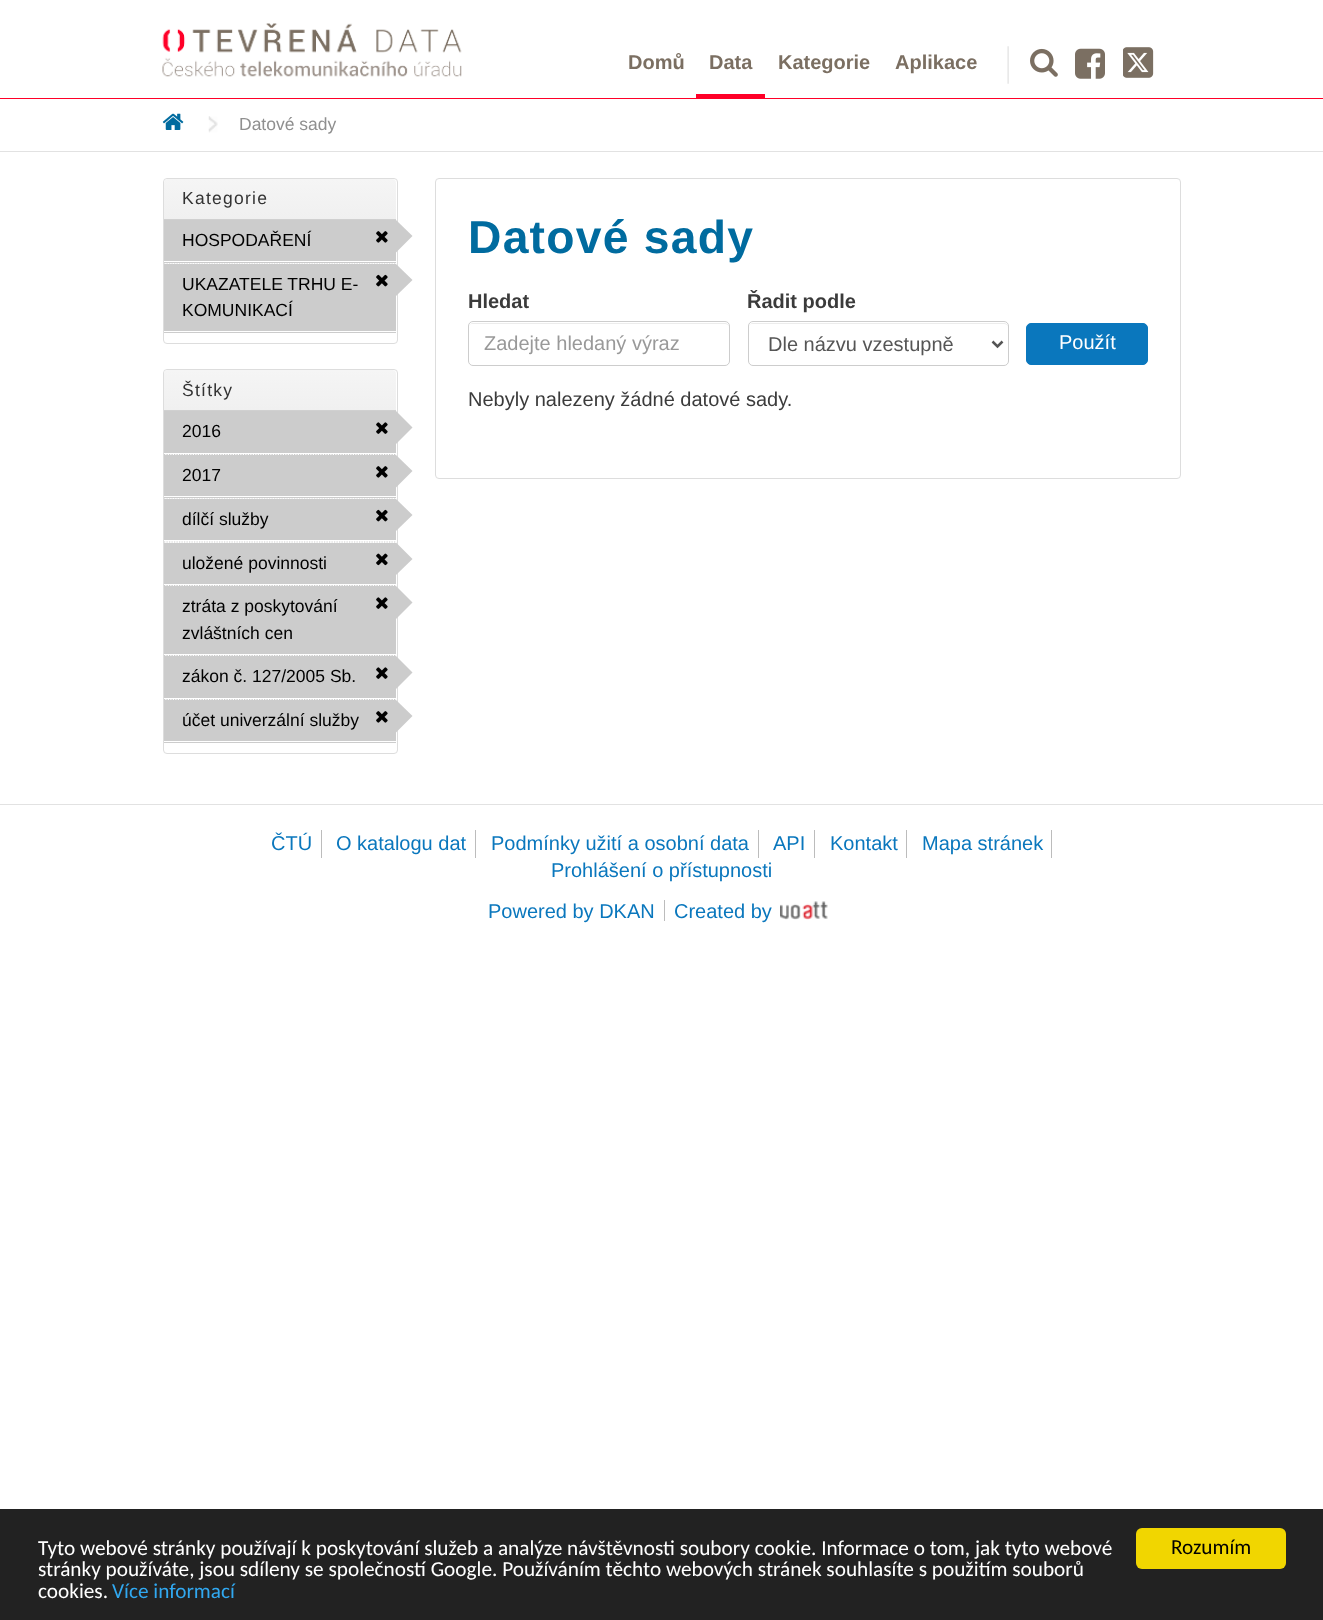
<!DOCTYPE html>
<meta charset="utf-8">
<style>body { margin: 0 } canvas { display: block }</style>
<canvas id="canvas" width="1323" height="1620"></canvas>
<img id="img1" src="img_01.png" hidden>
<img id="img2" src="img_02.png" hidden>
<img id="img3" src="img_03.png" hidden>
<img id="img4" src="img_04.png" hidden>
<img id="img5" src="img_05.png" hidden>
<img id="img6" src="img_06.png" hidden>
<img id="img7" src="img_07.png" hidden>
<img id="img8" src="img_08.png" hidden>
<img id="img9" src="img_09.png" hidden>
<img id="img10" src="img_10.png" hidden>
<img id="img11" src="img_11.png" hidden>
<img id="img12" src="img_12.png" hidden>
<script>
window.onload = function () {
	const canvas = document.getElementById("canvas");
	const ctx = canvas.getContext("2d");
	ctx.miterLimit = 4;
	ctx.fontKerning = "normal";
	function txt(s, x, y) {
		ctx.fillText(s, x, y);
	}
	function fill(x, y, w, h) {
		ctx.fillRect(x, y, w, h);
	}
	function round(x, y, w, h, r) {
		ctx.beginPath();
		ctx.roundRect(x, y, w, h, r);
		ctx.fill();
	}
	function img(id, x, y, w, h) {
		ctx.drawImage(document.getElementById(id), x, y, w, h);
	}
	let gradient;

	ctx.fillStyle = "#FFFFFF";
	fill(0, 0, 1323, 1620);
	ctx.fillStyle = "#FF0028";
	fill(0, 98, 1323, 1);
	img("img1", 162, 23, 300, 54);
	img("img2", 1007, 46, 2, 38);
	fill(696, 94, 69, 4);
	img("img3", 1030, 48, 28, 29);
	img("img4", 1075, 48, 30, 31);
	img("img5", 1123, 47, 31, 31);
	ctx.fillStyle = "#E2E2E2";
	fill(0, 151, 1323, 1);
	img("img6", 162, 113, 22, 17);
	img("img7", 208, 116, 10, 17);
	ctx.beginPath();
	ctx.roundRect(163.5, 178.5, 234, 165, 3.5);
	ctx.strokeStyle = "#DDDDDD";
	ctx.stroke();
	gradient = ctx.createLinearGradient(280, 179, 280, 219);
	gradient.addColorStop(0, "#F5F5F5");
	gradient.addColorStop(1, "#F0F0F0");
	ctx.fillStyle = gradient;
	ctx.beginPath();
	ctx.roundRect(164, 179, 232, 40, [4, 4, 0, 0]);
	ctx.fill();
	ctx.fillStyle = "#D0D0D0";
	fill(164, 219, 232, 1);
	ctx.beginPath();
	ctx.moveTo(164, 263);
	ctx.lineTo(396, 263);
	ctx.strokeStyle = "#CCCCCC";
	ctx.lineWidth = 1.2;
	ctx.setLineDash([1.25, 1.25]);
	ctx.stroke();
	ctx.fillStyle = "#CCCCCC";
	fill(164, 220, 232, 43);
	ctx.fillStyle = "#FFFFFF";
	fill(164, 261, 232, 1);
	img("img8", 376, 231, 12, 12);
	ctx.fillStyle = "#CCCCCC";
	ctx.beginPath();
	ctx.moveTo(396, 252.5);
	ctx.lineTo(396, 220);
	ctx.lineTo(412.5, 236);
	ctx.closePath();
	ctx.fill();
	fill(164, 264, 232, 69);
	ctx.fillStyle = "#FFFFFF";
	fill(164, 331, 232, 1);
	img("img9", 376, 274, 12, 13);
	ctx.fillStyle = "#CCCCCC";
	ctx.beginPath();
	ctx.moveTo(396, 296);
	ctx.lineTo(396, 264);
	ctx.lineTo(412.5, 280);
	ctx.closePath();
	ctx.fill();
	ctx.beginPath();
	ctx.roundRect(163.5, 369.5, 234, 384, 3.5);
	ctx.strokeStyle = "#DDDDDD";
	ctx.lineWidth = 1;
	ctx.setLineDash([]);
	ctx.stroke();
	gradient = ctx.createLinearGradient(280, 370, 280, 410);
	gradient.addColorStop(0, "#F5F5F5");
	gradient.addColorStop(1, "#F0F0F0");
	ctx.fillStyle = gradient;
	ctx.beginPath();
	ctx.roundRect(164, 370, 232, 40, [4, 4, 0, 0]);
	ctx.fill();
	ctx.fillStyle = "#D0D0D0";
	fill(164, 410, 232, 1);
	ctx.beginPath();
	ctx.moveTo(164, 454.5);
	ctx.lineTo(396, 454.5);
	ctx.strokeStyle = "#CCCCCC";
	ctx.lineWidth = 1.2;
	ctx.setLineDash([1.25, 1.25]);
	ctx.stroke();
	ctx.fillStyle = "#CCCCCC";
	fill(164, 411, 232, 42);
	ctx.fillStyle = "#FFFFFF";
	fill(164, 453, 232, 1);
	img("img10", 376, 422, 12, 12);
	ctx.fillStyle = "#CCCCCC";
	ctx.beginPath();
	ctx.moveTo(396, 444);
	ctx.lineTo(396, 411);
	ctx.lineTo(412.5, 427.5);
	ctx.closePath();
	ctx.fill();
	ctx.beginPath();
	ctx.moveTo(164, 498);
	ctx.lineTo(396, 498);
	ctx.stroke();
	fill(164, 455, 232, 43);
	ctx.fillStyle = "#FFFFFF";
	fill(164, 496, 232, 1);
	img("img8", 376, 466, 12, 12);
	ctx.fillStyle = "#CCCCCC";
	ctx.beginPath();
	ctx.moveTo(396, 487.5);
	ctx.lineTo(396, 455);
	ctx.lineTo(412.5, 471);
	ctx.closePath();
	ctx.fill();
	ctx.beginPath();
	ctx.moveTo(164, 542);
	ctx.lineTo(396, 542);
	ctx.stroke();
	fill(164, 499, 232, 41);
	img("img9", 376, 509, 12, 13);
	ctx.beginPath();
	ctx.moveTo(396, 531);
	ctx.lineTo(396, 499);
	ctx.lineTo(412.5, 515);
	ctx.closePath();
	ctx.fill();
	ctx.beginPath();
	ctx.moveTo(164, 585.5);
	ctx.lineTo(396, 585.5);
	ctx.stroke();
	fill(164, 543, 232, 41);
	ctx.fillStyle = "#FFFFFF";
	fill(164, 584, 232, 1);
	img("img11", 376, 553, 12, 13);
	ctx.fillStyle = "#CCCCCC";
	ctx.beginPath();
	ctx.moveTo(396, 575);
	ctx.lineTo(396, 542.5);
	ctx.lineTo(412.5, 559);
	ctx.closePath();
	ctx.fill();
	ctx.beginPath();
	ctx.moveTo(164, 655.5);
	ctx.lineTo(396, 655.5);
	ctx.stroke();
	fill(164, 586, 232, 68);
	ctx.fillStyle = "#FFFFFF";
	fill(164, 654, 232, 1);
	img("img10", 376, 597, 12, 12);
	ctx.fillStyle = "#CCCCCC";
	ctx.beginPath();
	ctx.moveTo(396, 619);
	ctx.lineTo(396, 586);
	ctx.lineTo(412.5, 602.5);
	ctx.closePath();
	ctx.fill();
	ctx.beginPath();
	ctx.moveTo(164, 699.5);
	ctx.lineTo(396, 699.5);
	ctx.stroke();
	fill(164, 656, 232, 42);
	ctx.fillStyle = "#FFFFFF";
	fill(164, 698, 232, 1);
	img("img10", 376, 667, 12, 12);
	ctx.fillStyle = "#CCCCCC";
	ctx.beginPath();
	ctx.moveTo(396, 689);
	ctx.lineTo(396, 656);
	ctx.lineTo(412.5, 672.5);
	ctx.closePath();
	ctx.fill();
	fill(164, 700, 232, 43);
	ctx.fillStyle = "#FFFFFF";
	fill(164, 741, 232, 1);
	img("img8", 376, 711, 12, 12);
	ctx.fillStyle = "#CCCCCC";
	ctx.beginPath();
	ctx.moveTo(396, 732.5);
	ctx.lineTo(396, 700);
	ctx.lineTo(412.5, 716);
	ctx.closePath();
	ctx.fill();
	ctx.beginPath();
	ctx.roundRect(435.5, 178.5, 745, 300, 3.5);
	ctx.strokeStyle = "#DDDDDD";
	ctx.lineWidth = 1;
	ctx.setLineDash([]);
	ctx.stroke();
	ctx.fillStyle = "#ECECEC";
	ctx.beginPath();
	ctx.moveTo(472, 324);
	ctx.lineTo(725, 324);
	ctx.bezierCurveTo(727, 324, 729, 325, 729, 328);
	ctx.lineTo(729, 327);
	ctx.bezierCurveTo(729, 325, 727, 323, 725, 323);
	ctx.lineTo(473, 323);
	ctx.bezierCurveTo(471, 323, 469, 325, 469, 327);
	ctx.lineTo(469, 328);
	ctx.bezierCurveTo(469, 325, 470, 324, 472, 324);
	ctx.closePath();
	ctx.fill();
	ctx.beginPath();
	ctx.roundRect(468.5, 321.5, 261, 44, 4.5);
	ctx.strokeStyle = "#CDCDCD";
	ctx.stroke();
	ctx.beginPath();
	ctx.moveTo(752, 324);
	ctx.lineTo(1004, 324);
	ctx.bezierCurveTo(1006, 324, 1008, 325, 1008, 328);
	ctx.lineTo(1008, 327);
	ctx.bezierCurveTo(1008, 325, 1006, 323, 1004, 323);
	ctx.lineTo(753, 323);
	ctx.bezierCurveTo(751, 323, 749, 325, 749, 327);
	ctx.lineTo(749, 328);
	ctx.bezierCurveTo(749, 325, 750, 324, 752, 324);
	ctx.closePath();
	ctx.fill();
	ctx.beginPath();
	ctx.roundRect(748.5, 321.5, 260, 44, 4.5);
	ctx.stroke();
	ctx.beginPath();
	ctx.moveTo(992.5, 341.5);
	ctx.lineTo(997.5, 346.5);
	ctx.lineTo(1002.5, 341.5);
	ctx.strokeStyle = "#555555";
	ctx.lineWidth = 2.5;
	ctx.stroke();
	ctx.fillStyle = "#0A77BD";
	ctx.beginPath();
	ctx.roundRect(1026.5, 323.5, 121, 41, 4.5);
	ctx.fill();
	ctx.strokeStyle = "#0A77BD";
	ctx.lineWidth = 1;
	ctx.stroke();
	ctx.fillStyle = "#E2E2E2";
	fill(0, 804, 1323, 1);
	ctx.fillStyle = "#BCBCBC";
	fill(321, 830, 1, 28);
	fill(475, 830, 1, 28);
	fill(758, 830, 1, 28);
	fill(814, 830, 1, 28);
	fill(906, 830, 1, 28);
	fill(1051, 830, 1, 28);
	fill(664, 900, 1, 21);
	img("img12", 780, 901, 48, 19);
	ctx.fillStyle = "#222222";
	fill(0, 1509, 1323, 111);
	ctx.fillStyle = "#F1D600";
	round(1136, 1528, 150, 41, 6);
	ctx.font = "bold 20px Liberation Sans";
	ctx.fillStyle = "#7B6F62";
	txt("Domů", 628, 69);
	txt("Data", 709, 69);
	txt("Kategorie", 778, 69);
	txt("Aplikace", 895, 69);
	ctx.font = "17.5px Liberation Sans";
	ctx.fillStyle = "#8F8F8F";
	txt("Datové sady", 239, 130);
	ctx.letterSpacing = "1.25px";
	ctx.fillStyle = "#333333";
	txt("Kategorie", 182, 204);
	ctx.letterSpacing = "0px";
	ctx.fillStyle = "#000000";
	txt("HOSPODAŘENÍ", 182, 246);
	txt("UKAZATELE TRHU E-", 182, 290);
	txt("KOMUNIKACÍ", 182, 316);
	ctx.letterSpacing = "1.25px";
	ctx.fillStyle = "#333333";
	txt("Štítky", 182, 396);
	ctx.letterSpacing = "0px";
	ctx.fillStyle = "#000000";
	txt("2016", 182, 437);
	txt("2017", 182, 481);
	txt("dílčí služby", 182, 525);
	txt("uložené povinnosti", 182, 569);
	txt("ztráta z poskytování", 182, 612);
	txt("zvláštních cen", 182, 639);
	txt("zákon č. 127/2005 Sb.", 182, 682);
	txt("účet univerzální služby", 182, 726);
	ctx.letterSpacing = "1.25px";
	ctx.font = "bold 46.25px Liberation Sans";
	ctx.fillStyle = "#006B9F";
	txt("Datové sady", 468, 253);
	ctx.letterSpacing = "0px";
	ctx.font = "bold 20px Liberation Sans";
	ctx.fillStyle = "#3B3B3B";
	txt("Hledat", 468, 308);
	ctx.font = "20px Liberation Sans";
	ctx.fillStyle = "#999999";
	txt("Zadejte hledaný výraz", 484, 350);
	ctx.font = "bold 20px Liberation Sans";
	ctx.fillStyle = "#3B3B3B";
	txt("Řadit podle", 747, 308);
	ctx.font = "20px Liberation Sans";
	ctx.fillStyle = "#555555";
	txt("Dle názvu vzestupně", 768, 351);
	ctx.fillStyle = "#FFFFFF";
	txt("Použít", 1059, 349);
	ctx.fillStyle = "#3B3B3B";
	txt("Nebyly nalezeny žádné datové sady.", 468, 406);
	ctx.fillStyle = "#0A77BD";
	txt("ČTÚ", 271, 850);
	txt("O katalogu dat", 336, 850);
	txt("Podmínky užití a osobní data", 491, 850);
	txt("API", 773, 850);
	txt("Kontakt", 830, 850);
	txt("Mapa stránek", 922, 850);
	txt("Prohlášení o přístupnosti", 551, 877);
	txt("Powered by DKAN", 488, 918);
	txt("Created by", 674, 918);
	ctx.font = "21.25px Carlito";
	ctx.fillStyle = "#FFFFFF";
	txt("Tyto webové stránky používají k poskytování služeb a analýze návštěvnosti soubory cookie. Informace o tom, jak tyto webové", 38, 1555);
	txt("stránky používáte, jsou sdíleny se společností Google. Používáním těchto webových stránek souhlasíte s použitím souborů", 38, 1576);
	txt("cookies.", 38, 1598);
	ctx.fillStyle = "#31A8F0";
	txt("Více informací", 112, 1598);
	ctx.fillStyle = "#000000";
	txt("Rozumím", 1171, 1554);
};
</script>
